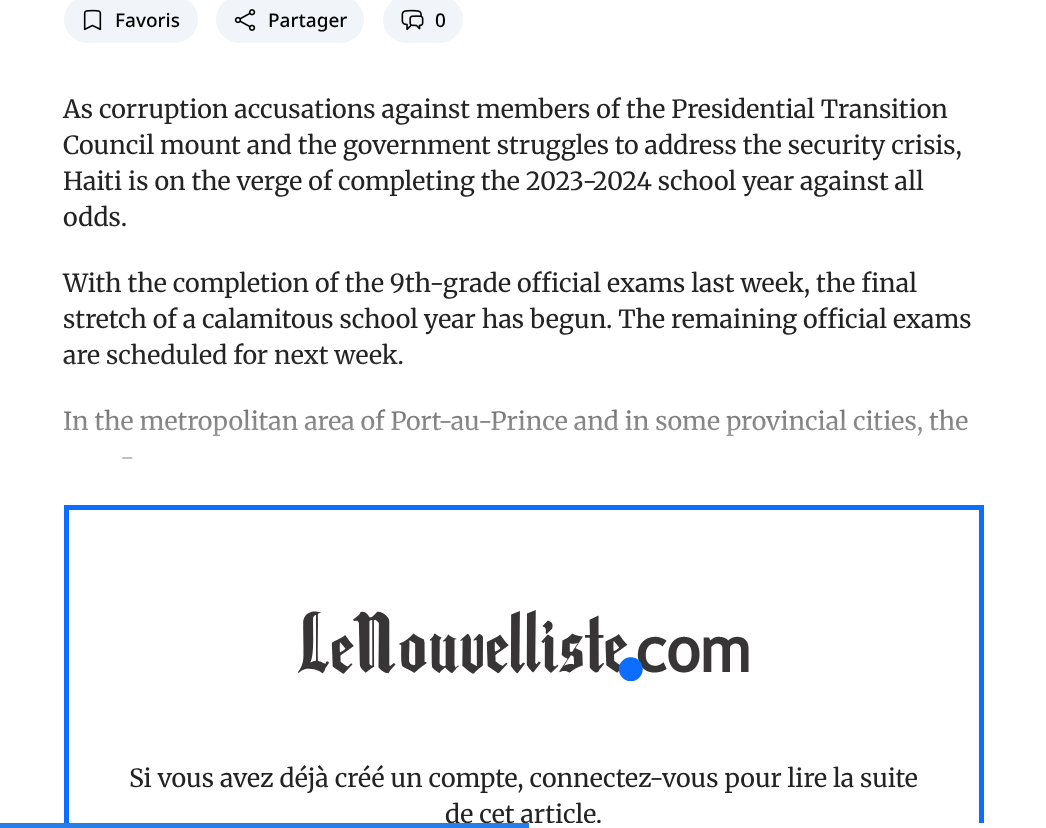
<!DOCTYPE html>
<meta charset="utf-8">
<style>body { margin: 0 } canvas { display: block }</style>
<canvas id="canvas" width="1046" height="828"></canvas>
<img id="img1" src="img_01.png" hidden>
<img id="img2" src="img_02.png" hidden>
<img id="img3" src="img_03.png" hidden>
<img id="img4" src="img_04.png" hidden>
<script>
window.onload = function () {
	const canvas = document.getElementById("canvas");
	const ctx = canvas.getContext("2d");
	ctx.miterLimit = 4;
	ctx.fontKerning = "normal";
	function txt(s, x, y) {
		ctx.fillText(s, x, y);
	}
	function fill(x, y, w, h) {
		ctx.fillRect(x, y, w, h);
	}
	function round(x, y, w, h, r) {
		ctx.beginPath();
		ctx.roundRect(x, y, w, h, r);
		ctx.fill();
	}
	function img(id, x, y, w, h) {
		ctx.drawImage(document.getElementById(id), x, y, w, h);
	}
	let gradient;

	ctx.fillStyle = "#FFFFFF";
	fill(0, 0, 1046, 828);
	ctx.fillStyle = "#F1F5F9";
	round(64, -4, 134, 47, 23.5);
	img("img1", 83, 9, 19, 22);
	round(216, -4, 148, 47, 23.5);
	img("img2", 234, 9, 22, 22);
	round(383, -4, 80, 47, 23.5);
	img("img3", 401, 9, 23, 22);
	ctx.strokeStyle = "#0D6EFD";
	ctx.lineWidth = 5;
	ctx.strokeRect(66.5, 507.5, 915, 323);
	img("img4", 298, 610, 451, 71);
	ctx.font = "500 19px Noto Sans";
	ctx.fillStyle = "#000000";
	txt("Favoris", 115, 27);
	txt("Partager", 268, 27);
	txt("0", 435, 27);
	ctx.font = "25px Merriweather";
	ctx.fillStyle = "#232323";
	txt("As corruption accusations against members of the Presidential Transition", 63, 118);
	txt("Council mount and the government struggles to address the security crisis,", 63, 154);
	txt("Haiti is on the verge of completing the 2023-2024 school year against all", 63, 190);
	txt("odds.", 63, 226);
	txt("With the completion of the 9th-grade official exams last week, the final", 63, 292);
	txt("stretch of a calamitous school year has begun. The remaining official exams", 63, 328);
	txt("are scheduled for next week.", 63, 364);
	txt("In the metropolitan area of Port-au-Prince and in some provincial cities, the", 63, 430);
	txt("-", 120, 466);
	gradient = ctx.createLinearGradient(524, 355, 524, 505);
	gradient.addColorStop(0, "rgba(255, 255, 255, 0)");
	gradient.addColorStop(1, "#FFFFFF");
	ctx.fillStyle = gradient;
	fill(64, 358, 904, 101);
	ctx.fillStyle = "#232323";
	txt("Si vous avez déjà créé un compte, connectez-vous pour lire la suite", 129, 787);
	txt("de cet article.", 445, 823);
	ctx.fillStyle = "#FFFFFF";
	fill(529, 823, 455, 5);
	ctx.fillStyle = "#277DEA";
	fill(0, 823, 529, 5);
};
</script>
